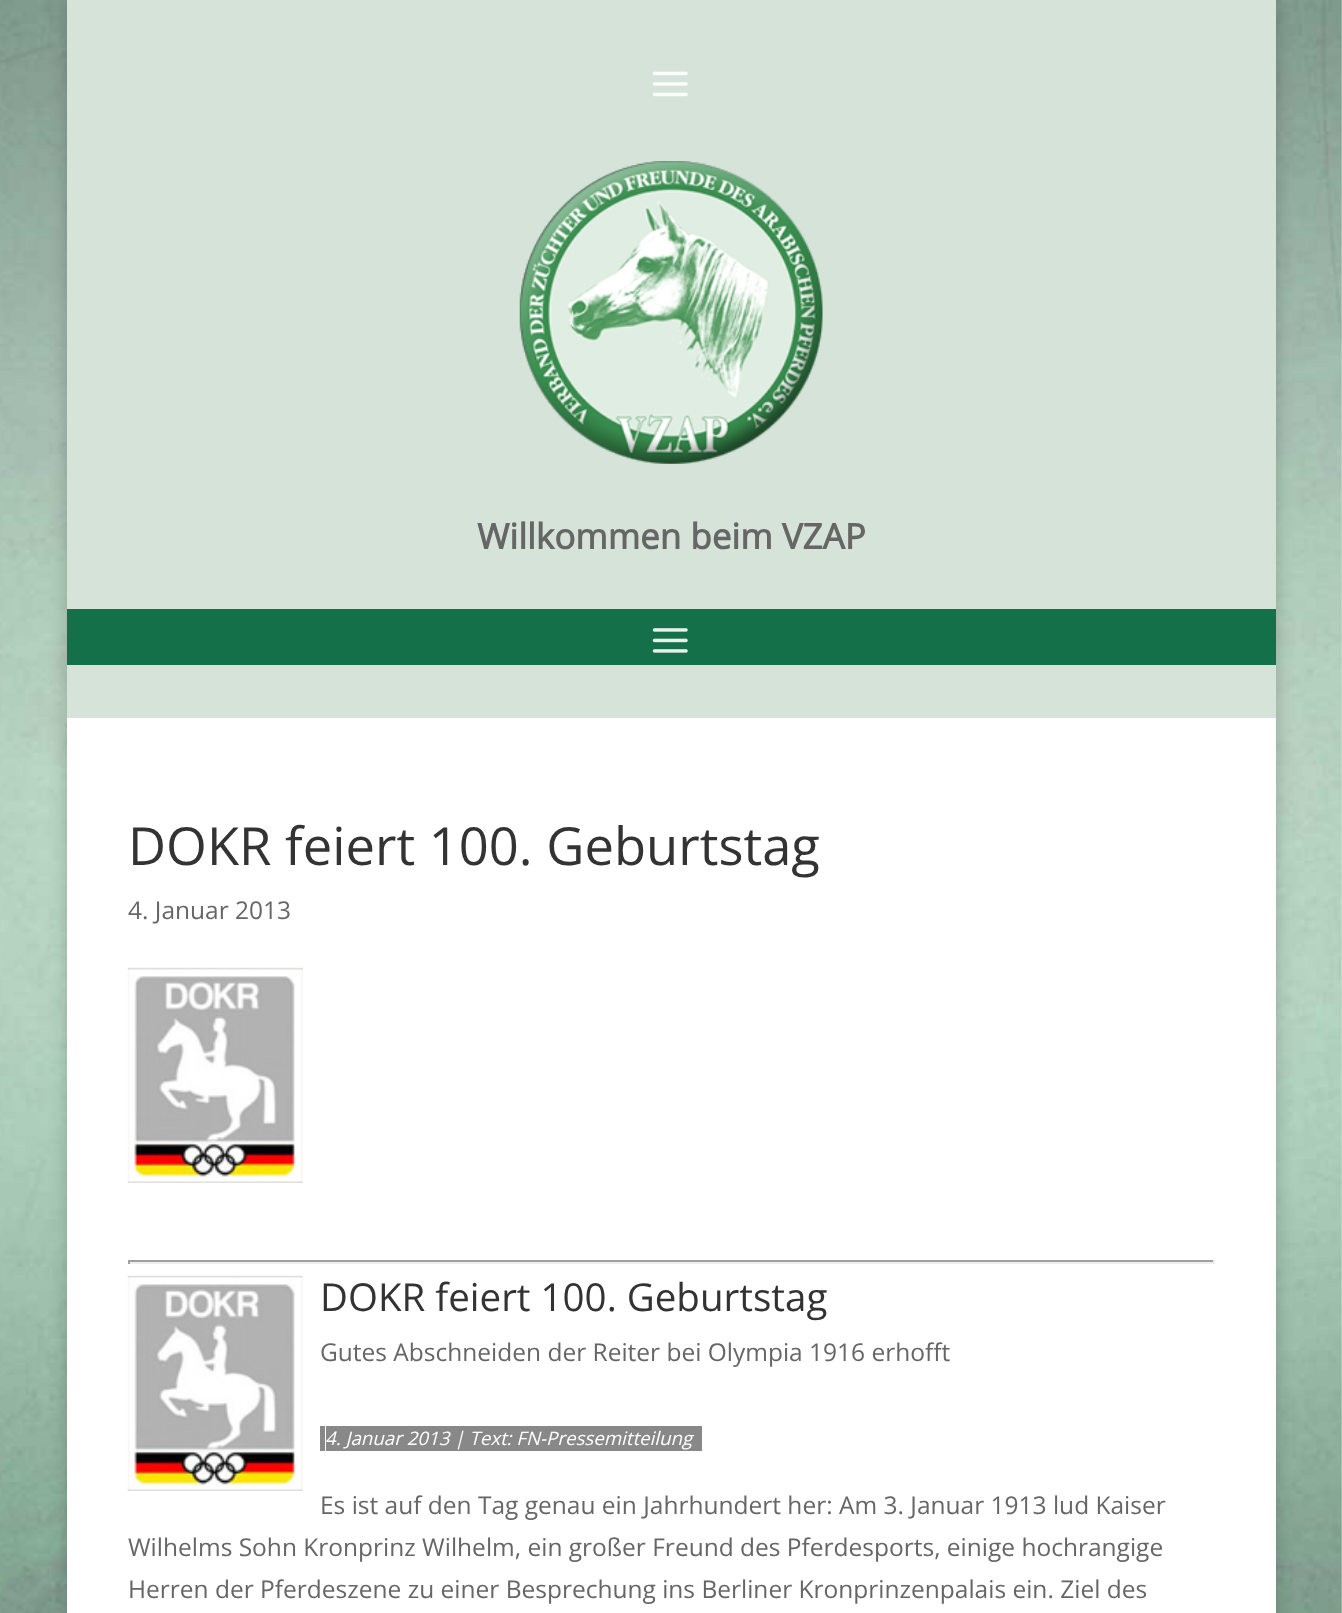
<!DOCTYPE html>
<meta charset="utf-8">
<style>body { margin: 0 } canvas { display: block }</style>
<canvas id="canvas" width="1342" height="1613"></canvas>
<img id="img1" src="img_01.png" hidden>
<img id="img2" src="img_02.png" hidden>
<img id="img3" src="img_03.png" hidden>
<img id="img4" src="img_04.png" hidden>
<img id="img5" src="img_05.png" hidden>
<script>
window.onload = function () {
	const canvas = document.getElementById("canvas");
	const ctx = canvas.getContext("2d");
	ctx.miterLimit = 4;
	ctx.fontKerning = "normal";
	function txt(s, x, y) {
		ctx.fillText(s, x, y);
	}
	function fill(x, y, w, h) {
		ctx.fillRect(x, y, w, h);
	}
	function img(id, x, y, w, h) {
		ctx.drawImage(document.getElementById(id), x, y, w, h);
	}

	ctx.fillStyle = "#FFFFFF";
	fill(0, 0, 1342, 1613);
	img("img1", 0, 0, 1342, 1613);
	ctx.fillStyle = "rgba(0, 0, 0, 0.2)";
	ctx.filter = "blur(9px)";
	ctx.beginPath();
	ctx.rect(67, 0, 1209, 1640);
	ctx.fill();
	ctx.filter = "none";
	ctx.fillStyle = "#D5E3D9";
	fill(67, 0, 1209, 718);
	img("img2", 652, 71, 36, 26);
	img("img3", 519, 161, 304, 303);
	ctx.fillStyle = "#147049";
	fill(67, 609, 1209, 56);
	img("img4", 652, 628, 36, 25);
	ctx.fillStyle = "#FFFFFF";
	fill(67, 718, 1209, 895);
	img("img5", 127, 967, 176, 216);
	ctx.fillStyle = "#9F9F9F";
	fill(128, 1260, 1087, 2);
	ctx.fillStyle = "#EEEEEE";
	fill(1213, 1260, 2, 4);
	fill(128, 1262, 1087, 2);
	ctx.fillStyle = "#9F9F9F";
	fill(128, 1260, 2, 4);
	img("img5", 127, 1275, 176, 216);
	ctx.fillStyle = "#888888";
	fill(320, 1426, 5, 25);
	fill(326, 1426, 376, 25);
	ctx.font = "bold 35px Open Sans";
	ctx.fillStyle = "#666666";
	txt("Willkommen beim VZAP", 477, 549);
	ctx.font = "52.5px Open Sans";
	ctx.fillStyle = "#333333";
	txt("DOKR feiert 100. Geburtstag", 128, 865);
	ctx.font = "24.5px Open Sans";
	ctx.fillStyle = "#666666";
	txt("4. Januar 2013", 128, 919);
	ctx.font = "38.5px Open Sans";
	ctx.fillStyle = "#333333";
	txt("DOKR feiert 100. Geburtstag", 320, 1311);
	ctx.font = "24.5px Open Sans";
	ctx.fillStyle = "#666666";
	txt("Gutes Abschneiden der Reiter bei Olympia 1916 erhofft", 320, 1361);
	ctx.font = "italic 18.7px Open Sans";
	ctx.fillStyle = "#FFFFFF";
	txt("4. Januar 2013 | Text: FN-Pressemitteilung", 325, 1445);
	ctx.font = "24.5px Open Sans";
	ctx.fillStyle = "#666666";
	txt("Es ist auf den Tag genau ein Jahrhundert her: Am 3. Januar 1913 lud Kaiser", 320, 1514);
	txt("Wilhelms Sohn Kronprinz Wilhelm, ein großer Freund des Pferdesports, einige hochrangige", 128, 1556);
	txt("Herren der Pferdeszene zu einer Besprechung ins Berliner Kronprinzenpalais ein. Ziel des", 128, 1598);
};
</script>
